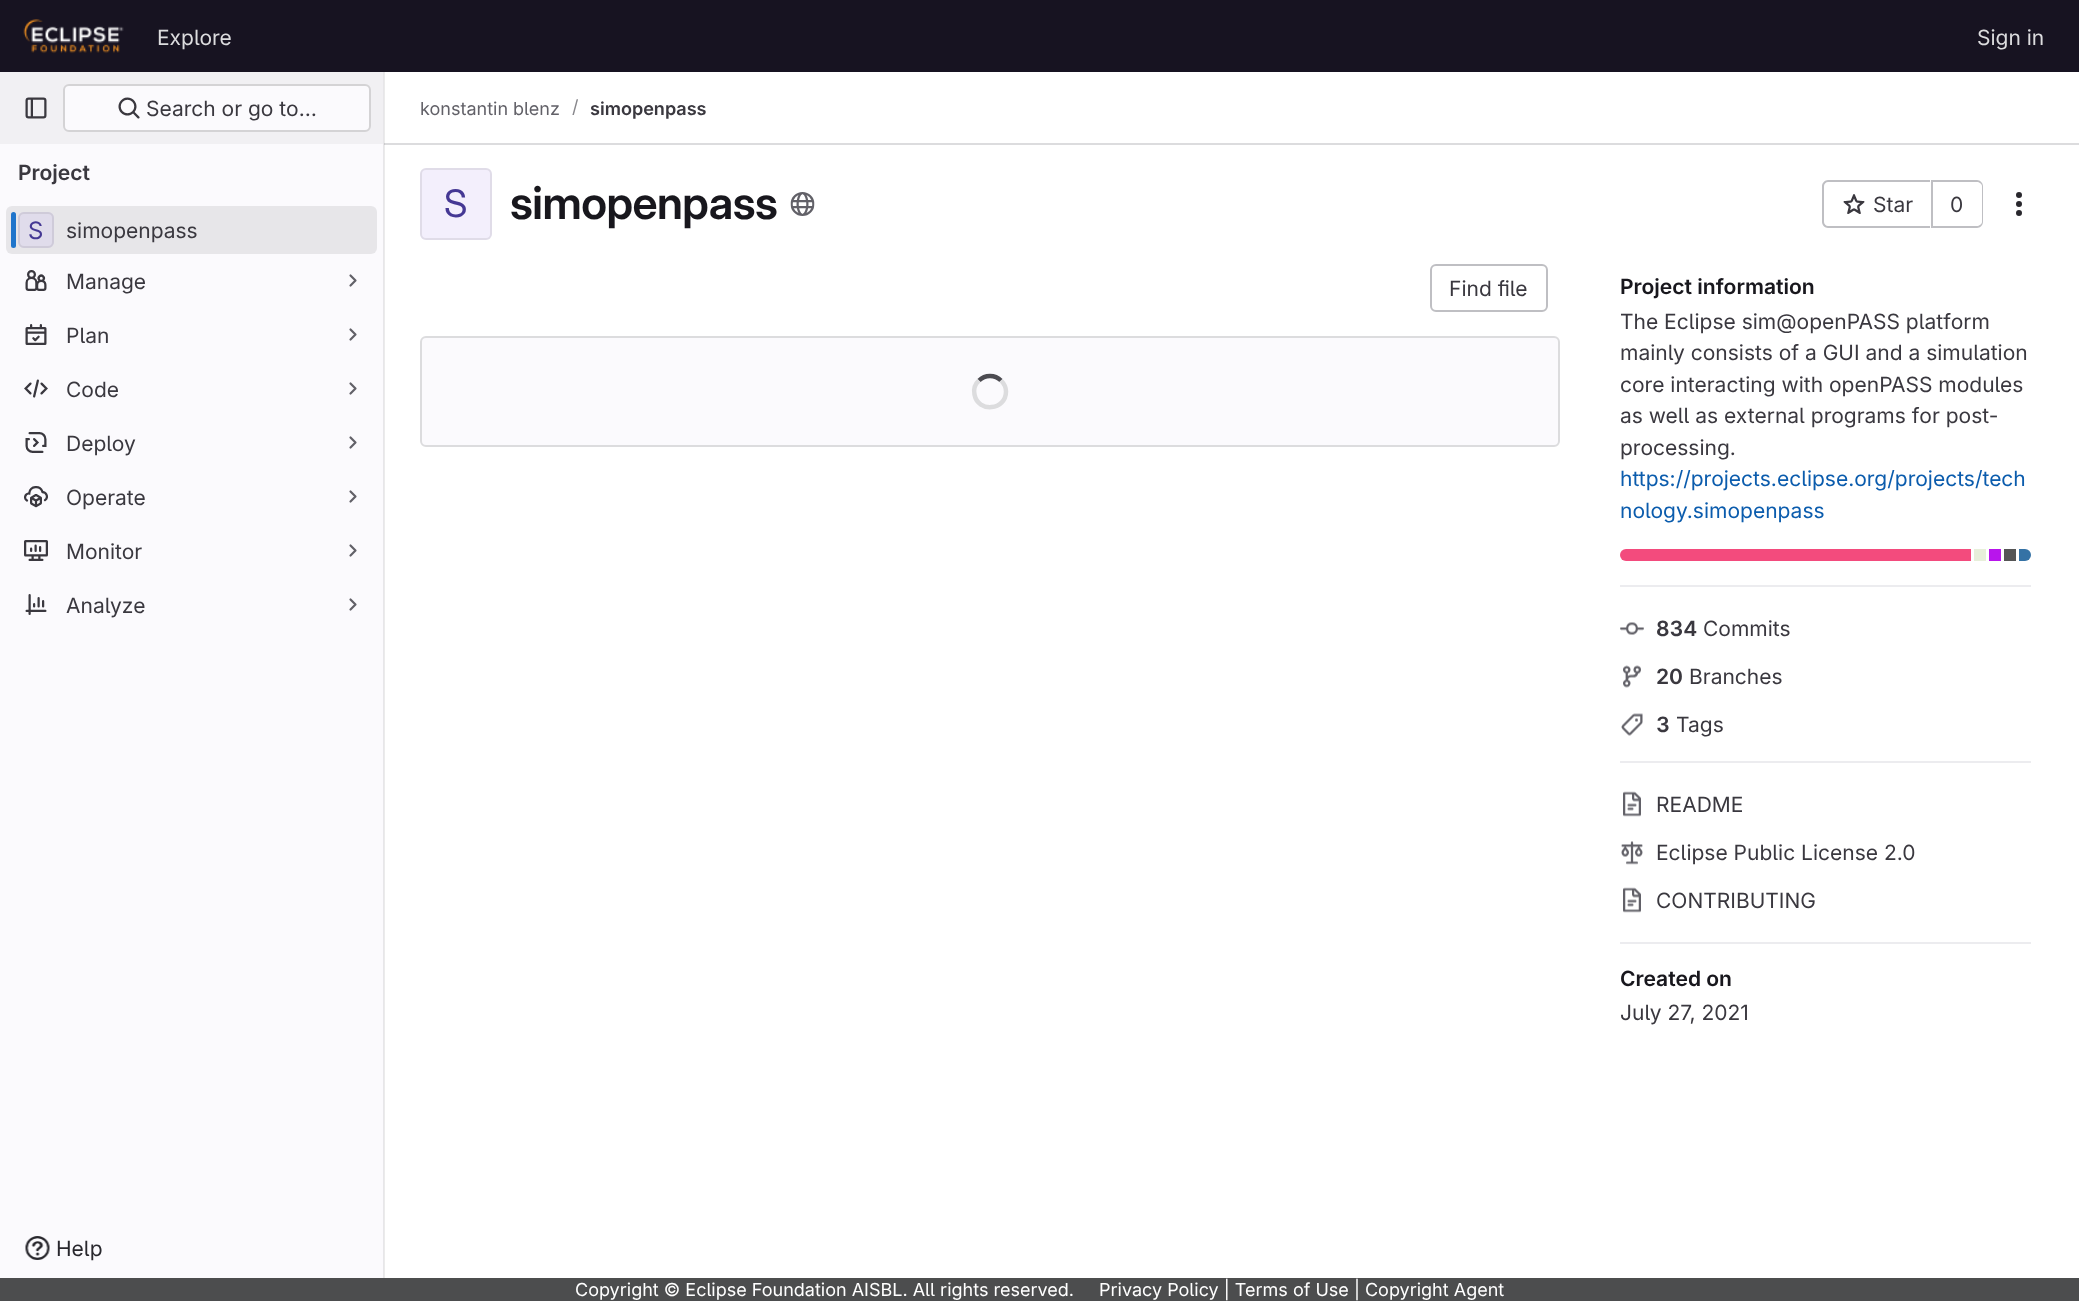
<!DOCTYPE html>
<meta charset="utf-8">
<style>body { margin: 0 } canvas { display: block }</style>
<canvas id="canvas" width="2079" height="1301"></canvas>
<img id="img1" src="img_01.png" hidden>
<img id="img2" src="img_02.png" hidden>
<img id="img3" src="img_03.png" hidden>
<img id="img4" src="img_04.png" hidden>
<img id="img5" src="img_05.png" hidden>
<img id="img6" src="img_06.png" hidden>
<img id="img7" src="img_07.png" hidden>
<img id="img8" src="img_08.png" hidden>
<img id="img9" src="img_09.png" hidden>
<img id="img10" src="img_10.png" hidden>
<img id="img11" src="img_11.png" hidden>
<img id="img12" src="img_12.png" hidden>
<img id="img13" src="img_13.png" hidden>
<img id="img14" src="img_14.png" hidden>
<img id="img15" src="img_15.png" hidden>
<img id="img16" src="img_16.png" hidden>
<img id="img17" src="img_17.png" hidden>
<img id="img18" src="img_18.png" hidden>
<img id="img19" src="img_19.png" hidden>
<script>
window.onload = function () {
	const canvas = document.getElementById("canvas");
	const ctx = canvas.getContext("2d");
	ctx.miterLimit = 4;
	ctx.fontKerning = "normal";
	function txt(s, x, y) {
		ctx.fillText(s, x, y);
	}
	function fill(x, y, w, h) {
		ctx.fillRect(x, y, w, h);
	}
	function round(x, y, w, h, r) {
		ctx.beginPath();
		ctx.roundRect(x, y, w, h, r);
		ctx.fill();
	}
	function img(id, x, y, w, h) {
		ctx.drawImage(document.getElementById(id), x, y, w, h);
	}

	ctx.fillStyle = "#FFFFFF";
	fill(0, 0, 2079, 1301);
	ctx.fillStyle = "#EBEBEB";
	fill(384, 72, 1, 1206);
	ctx.fillStyle = "#171321";
	fill(0, 0, 2079, 72);
	img("img1", 23, 19, 101, 35);
	ctx.fillStyle = "#FBFAFD";
	fill(0, 144, 383, 1134);
	ctx.fillStyle = "#E7E6E9";
	fill(383, 72, 1, 1206);
	ctx.fillStyle = "#F1F0F3";
	fill(0, 72, 383, 72);
	img("img2", 25, 97, 22, 22);
	ctx.fillStyle = "#FBFAFD";
	ctx.beginPath();
	ctx.roundRect(64, 85, 306, 46, 5);
	ctx.fill();
	ctx.strokeStyle = "#D4D3D5";
	ctx.lineWidth = 2;
	ctx.stroke();
	img("img3", 118, 97, 22, 22);
	ctx.fillStyle = "#E7E6E9";
	round(6, 206, 371, 48, 6);
	ctx.fillStyle = "#1F75CB";
	round(11, 212, 5, 36, 2.5);
	ctx.fillStyle = "#E0DCEB";
	round(18, 212, 36, 36, 6);
	ctx.beginPath();
	ctx.roundRect(19, 213, 34, 34, 5);
	ctx.strokeStyle = "#CFCBD9";
	ctx.stroke();
	img("img4", 25, 270, 22, 21);
	ctx.beginPath();
	ctx.moveTo(350.5, 275.5);
	ctx.lineTo(355.5, 280.5);
	ctx.lineTo(350.5, 285.5);
	ctx.strokeStyle = "#626168";
	ctx.lineWidth = 2.2;
	ctx.lineCap = "round";
	ctx.lineJoin = "round";
	ctx.stroke();
	img("img5", 25, 324, 22, 21);
	ctx.beginPath();
	ctx.moveTo(350.5, 329.5);
	ctx.lineTo(355.5, 334.5);
	ctx.lineTo(350.5, 339.5);
	ctx.stroke();
	img("img6", 24, 379, 24, 19);
	ctx.beginPath();
	ctx.moveTo(350.5, 383.5);
	ctx.lineTo(355.5, 388.5);
	ctx.lineTo(350.5, 393.5);
	ctx.stroke();
	img("img7", 25, 432, 22, 21);
	ctx.beginPath();
	ctx.moveTo(350.5, 437.5);
	ctx.lineTo(355.5, 442.5);
	ctx.lineTo(350.5, 447.5);
	ctx.stroke();
	img("img8", 24, 486, 24, 22);
	ctx.beginPath();
	ctx.moveTo(350.5, 491.5);
	ctx.lineTo(355.5, 496.5);
	ctx.lineTo(350.5, 501.5);
	ctx.stroke();
	img("img9", 24, 540, 24, 21);
	ctx.beginPath();
	ctx.moveTo(350.5, 545.5);
	ctx.lineTo(355.5, 550.5);
	ctx.lineTo(350.5, 555.5);
	ctx.stroke();
	img("img10", 25, 594, 22, 21);
	ctx.beginPath();
	ctx.moveTo(350.5, 599.5);
	ctx.lineTo(355.5, 604.5);
	ctx.lineTo(350.5, 609.5);
	ctx.stroke();
	img("img11", 25, 1236, 25, 24);
	ctx.fillStyle = "#DCDCDE";
	fill(384, 143, 1695, 2);
	ctx.fillStyle = "#CBCBCD";
	fill(384, 143, 1, 2);
	ctx.fillStyle = "#F3EFFC";
	round(420, 168, 72, 72, 6);
	ctx.beginPath();
	ctx.roundRect(421, 169, 70, 70, 5);
	ctx.strokeStyle = "rgba(5, 5, 6, 0.08)";
	ctx.lineWidth = 2;
	ctx.lineJoin = "miter";
	ctx.stroke();
	img("img12", 790, 192, 25, 24);
	ctx.fillStyle = "#BFBFC3";
	ctx.beginPath();
	ctx.moveTo(1828, 180);
	ctx.lineTo(1930, 180);
	ctx.lineTo(1930, 228);
	ctx.lineTo(1828, 228);
	ctx.bezierCurveTo(1825, 228, 1822, 225, 1822, 222);
	ctx.lineTo(1822, 186);
	ctx.bezierCurveTo(1822, 183, 1825, 180, 1828, 180);
	ctx.closePath();
	ctx.moveTo(1828, 182);
	ctx.lineTo(1930, 182);
	ctx.lineTo(1930, 226);
	ctx.lineTo(1828, 226);
	ctx.bezierCurveTo(1826, 226, 1824, 224, 1824, 222);
	ctx.lineTo(1824, 186);
	ctx.bezierCurveTo(1824, 184, 1826, 182, 1828, 182);
	ctx.closePath();
	ctx.fill("evenodd");
	img("img13", 1843, 194, 22, 20);
	ctx.beginPath();
	ctx.moveTo(1932, 180);
	ctx.lineTo(1977, 180);
	ctx.bezierCurveTo(1980, 180, 1983, 183, 1983, 186);
	ctx.lineTo(1983, 222);
	ctx.bezierCurveTo(1983, 225, 1980, 228, 1977, 228);
	ctx.lineTo(1932, 228);
	ctx.closePath();
	ctx.moveTo(1932, 182);
	ctx.lineTo(1977, 182);
	ctx.bezierCurveTo(1979, 182, 1982, 184, 1982, 186);
	ctx.lineTo(1982, 222);
	ctx.bezierCurveTo(1982, 224, 1979, 226, 1977, 226);
	ctx.lineTo(1932, 226);
	ctx.closePath();
	ctx.fill("evenodd");
	fill(1931, 180, 2, 48);
	img("img14", 2016, 192, 6, 24);
	ctx.beginPath();
	ctx.roundRect(1431, 265, 116, 46, 5);
	ctx.strokeStyle = "#BFBFC3";
	ctx.stroke();
	ctx.fillStyle = "#FBFAFD";
	ctx.beginPath();
	ctx.roundRect(421, 337, 1138, 109, 5);
	ctx.fill();
	ctx.strokeStyle = "#DCDCDE";
	ctx.stroke();
	ctx.beginPath();
	ctx.moveTo(979, 380.5);
	ctx.bezierCurveTo(985, 374.5, 995, 374.5, 1001, 380.5);
	ctx.strokeStyle = "#4C4B51";
	ctx.lineWidth = 4.5;
	ctx.lineCap = "butt";
	ctx.stroke();
	ctx.beginPath();
	ctx.moveTo(1001, 380.5);
	ctx.bezierCurveTo(1004, 383.5, 1006, 387.5, 1006, 391.5);
	ctx.bezierCurveTo(1006, 410.5, 978, 413, 974.5, 394.5);
	ctx.bezierCurveTo(973.5, 389.5, 975, 384, 979, 380.5);
	ctx.strokeStyle = "#DCDCDE";
	ctx.stroke();
	ctx.fillStyle = "#ECECEF";
	fill(1620, 585, 411, 2);
	ctx.fillStyle = "#F34B7D";
	ctx.beginPath();
	ctx.roundRect(1620, 549, 351, 12, [6, 0, 0, 6]);
	ctx.fill();
	ctx.fillStyle = "#E7EFDA";
	fill(1974, 549, 12, 12);
	ctx.fillStyle = "#B815EC";
	fill(1989, 549, 12, 12);
	ctx.fillStyle = "#555555";
	fill(2004, 549, 12, 12);
	ctx.fillStyle = "#3572A5";
	ctx.beginPath();
	ctx.roundRect(2019, 549, 12, 12, [0, 6, 6, 0]);
	ctx.fill();
	ctx.fillStyle = "#ECECEF";
	fill(1620, 761, 411, 2);
	img("img15", 1620, 622, 24, 13);
	img("img16", 1623, 665, 18, 23);
	img("img17", 1621, 713, 22, 23);
	fill(1620, 942, 411, 2);
	img("img18", 1623, 791, 18, 26);
	img("img19", 1621, 841, 22, 24);
	img("img18", 1623, 887, 18, 26);
	ctx.fillStyle = "#4C4D4E";
	fill(0, 1278, 2079, 23);
	ctx.font = "21px 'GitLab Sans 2'";
	ctx.fillStyle = "#DCDCDE";
	txt("Explore", 157, 45);
	txt("Sign in", 1977, 45);
	ctx.fillStyle = "#3A383F";
	txt("Search or go to…", 146, 116);
	ctx.font = "600 21px 'GitLab Sans 2'";
	txt("Project", 18, 180);
	ctx.font = "24px 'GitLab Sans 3'";
	ctx.fillStyle = "#453894";
	txt("S", 28, 239);
	ctx.font = "21px 'GitLab Sans 2'";
	ctx.fillStyle = "#3A383F";
	txt("simopenpass", 66, 238);
	txt("Manage", 66, 289);
	txt("Plan", 66, 343);
	txt("Code", 66, 397);
	txt("Deploy", 66, 451);
	txt("Operate", 66, 505);
	txt("Monitor", 66, 559);
	txt("Analyze", 66, 613);
	ctx.fillStyle = "#28272D";
	txt("Help", 56, 1256);
	ctx.font = "18px 'GitLab Sans 2'";
	ctx.fillStyle = "#626168";
	txt("konstantin blenz", 420, 115);
	ctx.fillStyle = "#89888D";
	txt("/", 572, 113);
	ctx.font = "600 18px 'GitLab Sans 2'";
	ctx.fillStyle = "#3A383F";
	txt("simopenpass", 590, 115);
	ctx.font = "38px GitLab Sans";
	ctx.fillStyle = "#453894";
	txt("S", 444, 217);
	ctx.letterSpacing = "-0.5px";
	ctx.font = "600 45px GitLab Sans";
	ctx.fillStyle = "#18171D";
	txt("simopenpass", 510, 219);
	ctx.letterSpacing = "0px";
	ctx.font = "21px 'GitLab Sans 2'";
	ctx.fillStyle = "#3A383F";
	txt("Star", 1873, 212);
	txt("0", 1950, 212);
	txt("Find file", 1449, 296);
	ctx.font = "600 21px 'GitLab Sans 2'";
	ctx.fillStyle = "#18171D";
	txt("Project information", 1620, 294);
	ctx.font = "21px 'GitLab Sans 2'";
	ctx.fillStyle = "#3A383F";
	txt("The Eclipse sim@openPASS platform", 1620, 329);
	txt("mainly consists of a GUI and a simulation", 1620, 360);
	txt("core interacting with openPASS modules", 1620, 392);
	txt("as well as external programs for post-", 1620, 423);
	txt("processing.", 1620, 455);
	ctx.fillStyle = "#0B5CAD";
	txt("https://projects.eclipse.org/projects/tech", 1620, 486);
	txt("nology.simopenpass", 1620, 518);
	ctx.font = "600 21px 'GitLab Sans 2'";
	ctx.fillStyle = "#3A383F";
	txt("834", 1656, 636);
	ctx.font = "21px 'GitLab Sans 2'";
	txt("Commits", 1703, 636);
	ctx.font = "600 21px 'GitLab Sans 2'";
	txt("20", 1656, 684);
	ctx.font = "21px 'GitLab Sans 2'";
	txt("Branches", 1689, 684);
	ctx.font = "600 21px 'GitLab Sans 2'";
	txt("3", 1656, 732);
	ctx.font = "21px 'GitLab Sans 2'";
	txt("Tags", 1676, 732);
	txt("README", 1656, 812);
	txt("Eclipse Public License 2.0", 1656, 860);
	txt("CONTRIBUTING", 1656, 908);
	ctx.font = "600 21px 'GitLab Sans 2'";
	ctx.fillStyle = "#18171D";
	txt("Created on", 1620, 986);
	ctx.font = "21px 'GitLab Sans 2'";
	ctx.fillStyle = "#3A383F";
	txt("July 27, 2021", 1620, 1020);
	ctx.font = "18px 'GitLab Sans 2'";
	ctx.fillStyle = "#FFFFFF";
	txt("Copyright © Eclipse Foundation AISBL. All rights reserved.", 575, 1296);
	txt("Privacy Policy | Terms of Use | Copyright Agent", 1099, 1296);
};
</script>
